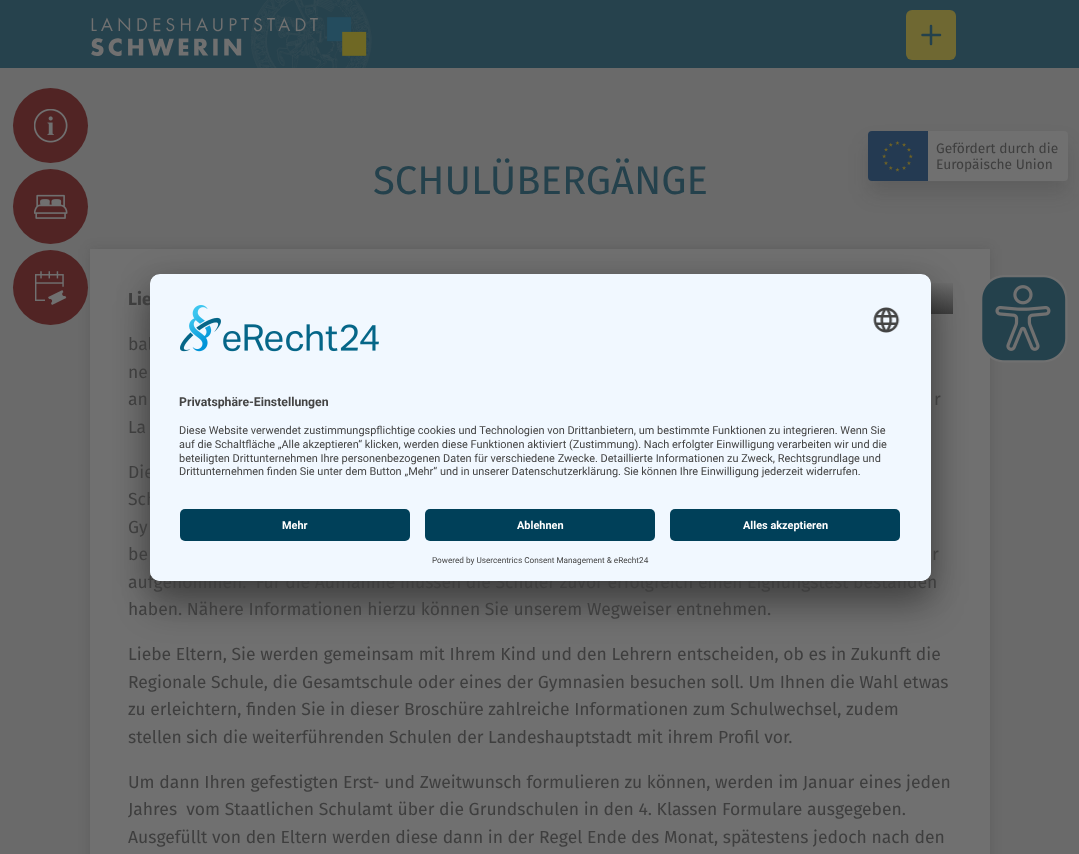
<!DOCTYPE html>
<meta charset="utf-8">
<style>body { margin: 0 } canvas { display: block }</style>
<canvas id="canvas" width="1079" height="854"></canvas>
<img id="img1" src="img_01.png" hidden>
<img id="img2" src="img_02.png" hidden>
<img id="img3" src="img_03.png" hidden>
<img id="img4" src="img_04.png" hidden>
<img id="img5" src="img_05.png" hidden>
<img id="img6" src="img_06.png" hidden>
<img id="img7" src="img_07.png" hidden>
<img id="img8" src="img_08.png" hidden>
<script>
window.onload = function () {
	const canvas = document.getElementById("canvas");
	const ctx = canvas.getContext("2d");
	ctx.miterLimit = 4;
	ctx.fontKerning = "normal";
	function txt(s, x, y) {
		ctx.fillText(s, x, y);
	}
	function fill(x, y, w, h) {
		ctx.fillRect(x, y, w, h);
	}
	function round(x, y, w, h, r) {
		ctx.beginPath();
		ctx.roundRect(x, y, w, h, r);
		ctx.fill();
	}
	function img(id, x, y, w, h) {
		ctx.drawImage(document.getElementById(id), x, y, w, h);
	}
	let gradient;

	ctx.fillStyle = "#6A6A6A";
	fill(0, 0, 1079, 854);
	ctx.fillStyle = "#26424D";
	fill(0, 0, 1079, 68);
	img("img1", 91, 0, 281, 68);
	ctx.fillStyle = "#6F6832";
	round(906, 10, 50, 50, 6);
	ctx.beginPath();
	ctx.moveTo(931, 26);
	ctx.lineTo(931, 44);
	ctx.moveTo(922.5, 35);
	ctx.lineTo(940, 35);
	ctx.strokeStyle = "#24414C";
	ctx.lineWidth = 2.5;
	ctx.lineCap = "round";
	ctx.lineJoin = "round";
	ctx.stroke();
	ctx.fillStyle = "#512424";
	ctx.beginPath();
	ctx.arc(50.5, 125.5, 37.5, 0, Math.PI * 2);
	ctx.fill();
	img("img2", 34, 109, 34, 34);
	ctx.fillStyle = "rgba(36, 36, 36, 0.15)";
	ctx.filter = "blur(6px)";
	ctx.beginPath();
	ctx.rect(90, 249, 900, 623);
	ctx.fill();
	ctx.filter = "none";
	ctx.fillStyle = "#512424";
	ctx.beginPath();
	ctx.arc(50.5, 206.5, 37.5, 0, Math.PI * 2);
	ctx.fill();
	img("img3", 34, 194, 34, 25);
	ctx.beginPath();
	ctx.arc(50.5, 287.5, 37.5, 0, Math.PI * 2);
	ctx.fill();
	img("img4", 35, 271, 32, 34);
	ctx.fillStyle = "#707070";
	fill(90, 249, 900, 605);
	img("img5", 982, 275, 86, 88);
	gradient = ctx.createLinearGradient(837, 281, 837, 314);
	gradient.addColorStop(0, "#707070");
	gradient.addColorStop(1, "#3E3E3E");
	ctx.fillStyle = gradient;
	fill(930, 283, 23, 31);
	ctx.fillStyle = "rgba(36, 36, 36, 0.15)";
	ctx.filter = "blur(9.5px)";
	ctx.beginPath();
	ctx.roundRect(868, 144, 200, 50, 4);
	ctx.fill();
	ctx.filter = "none";
	ctx.fillStyle = "#707070";
	round(868, 131, 200, 50, 4);
	ctx.fillStyle = "#243A52";
	ctx.beginPath();
	ctx.roundRect(868, 131, 60, 50, [4, 0, 0, 4]);
	ctx.fill();
	img("img6", 882, 141, 31, 31);
	ctx.fillStyle = "rgba(0, 0, 0, 0.3)";
	ctx.filter = "blur(17.5px)";
	ctx.beginPath();
	ctx.roundRect(150, 299, 781, 307, 10);
	ctx.fill();
	ctx.filter = "none";
	ctx.fillStyle = "rgba(0, 0, 0, 0.22)";
	ctx.filter = "blur(16px)";
	ctx.beginPath();
	ctx.roundRect(150, 280, 781, 308, 10);
	ctx.fill();
	ctx.filter = "none";
	ctx.font = "40px Fira Sans";
	ctx.fillStyle = "#24414C";
	txt("SCHULÜBERGÄNGE", 373, 194);
	ctx.font = "bold 17.5px Fira Sans";
	ctx.fillStyle = "#3E3E3E";
	txt("Lie", 128, 305);
	ctx.font = "17.5px Fira Sans";
	txt("bal", 128, 350);
	txt("ne", 128, 378);
	txt("an", 128, 405);
	txt("r", 934, 405);
	txt("La", 128, 433);
	txt("Die", 128, 478);
	txt("Sch", 128, 505);
	txt("Gy", 128, 533);
	txt("be", 128, 560);
	txt("r", 932, 560);
	txt("aufgenommen.  Für die Aufnahme müssen die Schüler zuvor erfolgreich einen Eignungstest bestanden", 128, 588);
	txt("haben. Nähere Informationen hierzu können Sie unserem Wegweiser entnehmen.", 128, 615);
	txt("Liebe Eltern, Sie werden gemeinsam mit Ihrem Kind und den Lehrern entscheiden, ob es in Zukunft die", 128, 660);
	txt("Regionale Schule, die Gesamtschule oder eines der Gymnasien besuchen soll. Um Ihnen die Wahl etwas", 128, 688);
	txt("zu erleichtern, finden Sie in dieser Broschüre zahlreiche Informationen zum Schulwechsel, zudem", 128, 715);
	txt("stellen sich die weiterführenden Schulen der Landeshauptstadt mit ihrem Profil vor.", 128, 743);
	txt("Um dann Ihren gefestigten Erst- und Zweitwunsch formulieren zu können, werden im Januar eines jeden", 128, 788);
	txt("Jahres  vom Staatlichen Schulamt über die Grundschulen in den 4. Klassen Formulare ausgegeben.", 128, 815);
	txt("Ausgefüllt von den Eltern werden diese dann in der Regel Ende des Monat, spätestens jedoch nach den", 128, 843);
	ctx.font = "13.75px Fira Sans";
	txt("Gefördert durch die", 936, 153);
	txt("Europäische Union", 936, 169);
	ctx.fillStyle = "#F1F8FF";
	round(150, 274, 781, 307, 10);
	ctx.save();
	ctx.beginPath();
	ctx.roundRect(150, 274, 781, 307, 10);
	ctx.clip();
	ctx.beginPath();
	ctx.roundRect(150, 274, 781, 225, [10, 10, 0, 0]);
	ctx.clip();
	fill(150, 275, 781, 224);
	ctx.restore();
	img("img7", 180, 305, 199, 47);
	img("img8", 873, 307, 27, 26);
	ctx.font = "bold 12.25px Roboto";
	ctx.fillStyle = "#444444";
	txt("Privatsphäre-Einstellungen", 179, 406);
	ctx.font = "10.95px Roboto";
	txt("Diese Website verwendet zustimmungspflichtige cookies und Technologien von Drittanbietern, um bestimmte Funktionen zu integrieren. Wenn Sie", 179, 434);
	txt("auf die Schaltfläche „Alle akzeptieren“ klicken, werden diese Funktionen aktiviert (Zustimmung). Nach erfolgter Einwilligung verarbeiten wir und die", 179, 448);
	txt("beteiligten Drittunternehmen Ihre personenbezogenen Daten für verschiedene Zwecke. Detaillierte Informationen zu Zweck, Rechtsgrundlage und", 179, 462);
	txt("Drittunternehmen finden Sie unter dem Button „Mehr“ und in unserer Datenschutzerklärung. Sie können Ihre Einwilligung jederzeit widerrufen.", 179, 475);
	ctx.fillStyle = "#F1F8FF";
	ctx.beginPath();
	ctx.roundRect(150, 499, 781, 82, [0, 0, 10, 10]);
	ctx.fill();
	ctx.fillStyle = "#004059";
	round(180, 509, 230, 32, 5);
	ctx.font = "bold 10.95px Roboto";
	ctx.fillStyle = "#FFFFFF";
	txt("Mehr", 282, 529);
	ctx.fillStyle = "#004059";
	round(425, 509, 230, 32, 5);
	ctx.fillStyle = "#FFFFFF";
	txt("Ablehnen", 517, 529);
	ctx.fillStyle = "#004059";
	round(670, 509, 230, 32, 5);
	ctx.fillStyle = "#FFFFFF";
	txt("Alles akzeptieren", 743, 529);
	ctx.font = "8.2px Roboto";
	ctx.fillStyle = "#444444";
	txt("Powered by Usercentrics Consent Management & eRecht24", 432, 563);
};
</script>
